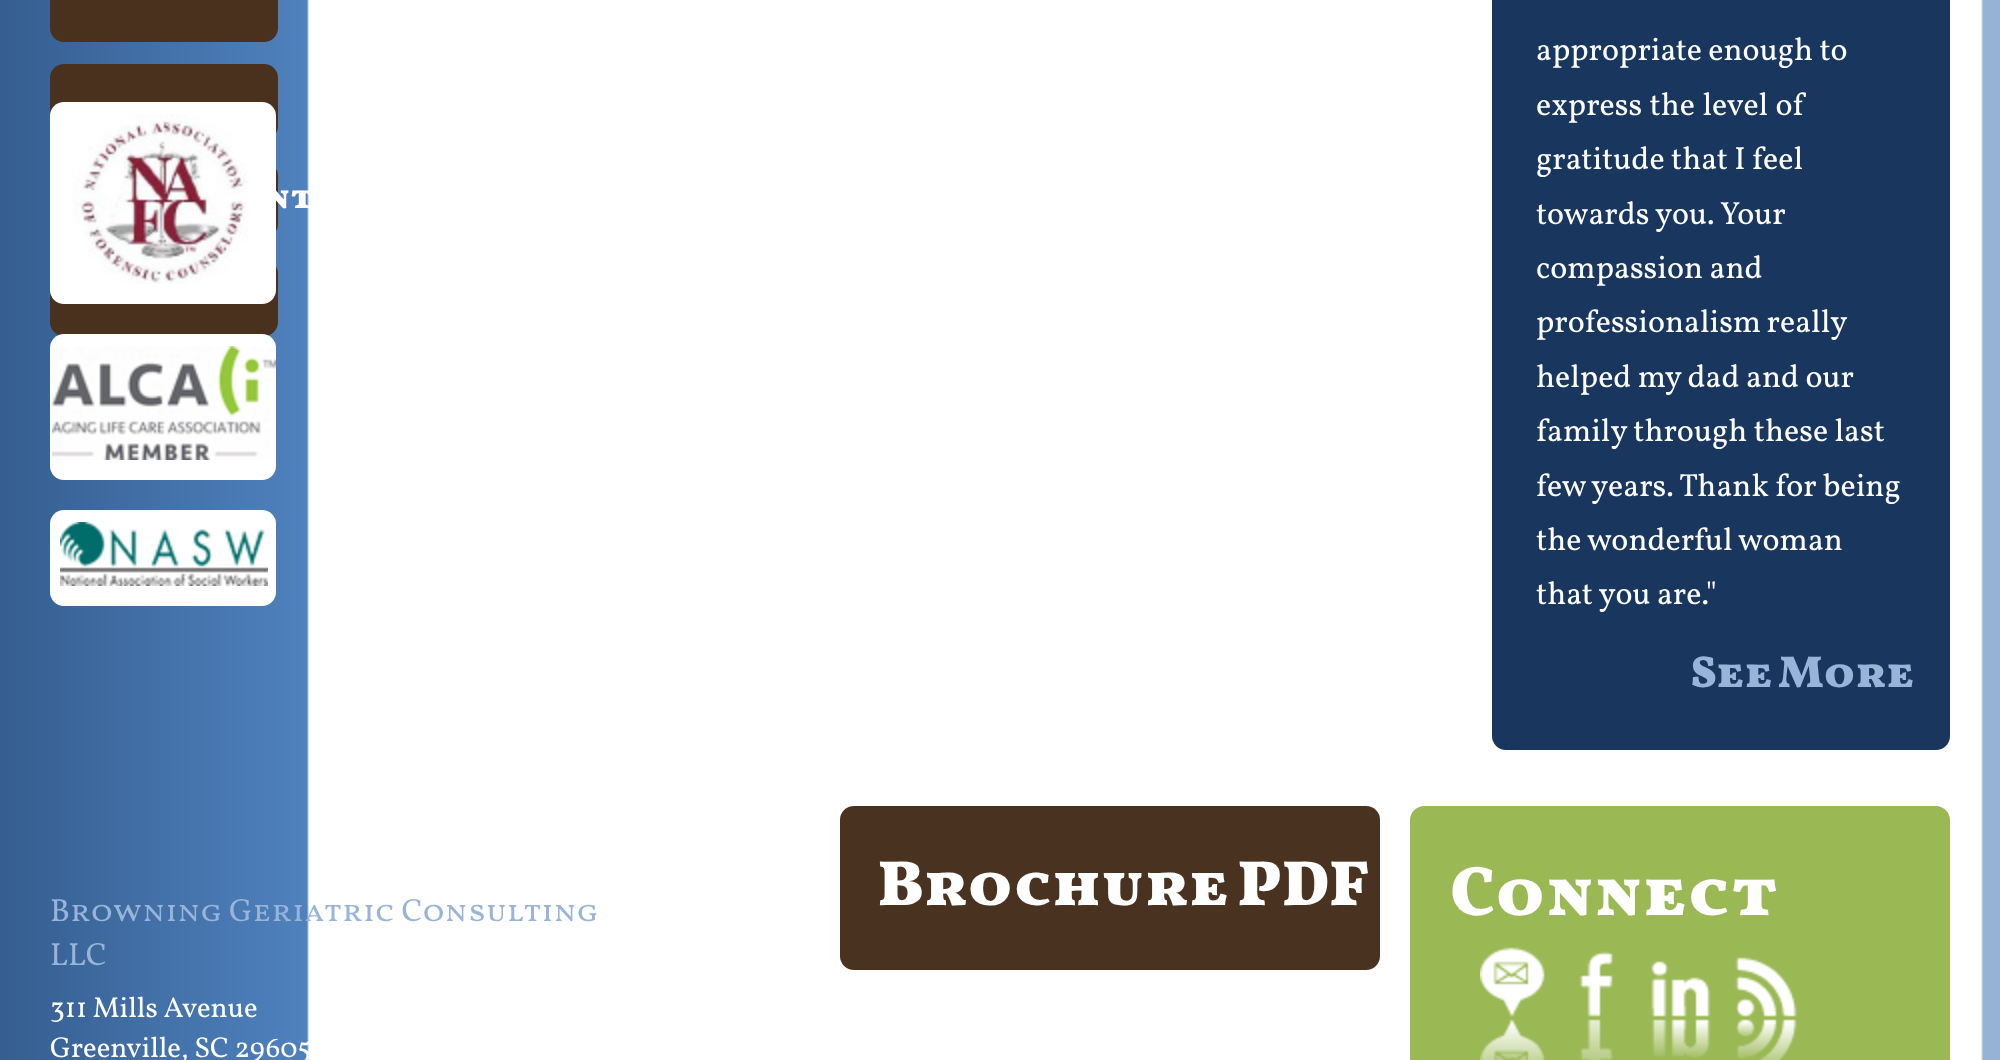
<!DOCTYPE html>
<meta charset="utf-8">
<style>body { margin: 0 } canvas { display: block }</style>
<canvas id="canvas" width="2000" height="1060"></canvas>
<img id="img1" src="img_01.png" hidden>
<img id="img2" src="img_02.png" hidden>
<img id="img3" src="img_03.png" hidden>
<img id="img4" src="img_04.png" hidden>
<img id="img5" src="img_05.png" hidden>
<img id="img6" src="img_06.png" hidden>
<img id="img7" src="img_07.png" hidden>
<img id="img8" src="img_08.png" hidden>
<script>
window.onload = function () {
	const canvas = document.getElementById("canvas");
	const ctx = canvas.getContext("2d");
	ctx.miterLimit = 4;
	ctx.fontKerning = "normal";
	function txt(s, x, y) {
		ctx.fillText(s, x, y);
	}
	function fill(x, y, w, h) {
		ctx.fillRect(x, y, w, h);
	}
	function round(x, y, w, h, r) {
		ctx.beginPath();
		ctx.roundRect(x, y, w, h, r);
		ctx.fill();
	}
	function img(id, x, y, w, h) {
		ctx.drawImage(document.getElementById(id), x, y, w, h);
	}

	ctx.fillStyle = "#FFFFFF";
	fill(0, 0, 2000, 1060);
	img("img1", 0, 0, 2000, 1060);
	ctx.fillStyle = "#4A311D";
	round(50, 64, 228, 76, 14);
	round(50, 162, 228, 76, 14);
	round(50, 260, 228, 76, 14);
	ctx.fillStyle = "#FFFFFF";
	round(50, 102, 226, 202, 14);
	img("img2", 72, 114, 176, 170);
	round(50, 334, 226, 146, 14);
	img("img3", 52, 346, 224, 114);
	round(50, 510, 226, 96, 14);
	img("img4", 60, 522, 208, 64);
	ctx.fillStyle = "#4A311D";
	round(50, -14, 228, 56, 14);
	ctx.fillStyle = "#18365E";
	round(1492, -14, 458, 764, 14);
	ctx.fillStyle = "#4A3220";
	round(840, 806, 540, 164, 14);
	ctx.fillStyle = "#9AB854";
	ctx.beginPath();
	ctx.moveTo(1424, 806);
	ctx.lineTo(1936, 806);
	ctx.bezierCurveTo(1943.5, 806, 1950, 812.5, 1950, 820);
	ctx.lineTo(1950, 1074);
	ctx.lineTo(1410, 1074);
	ctx.lineTo(1410, 820);
	ctx.bezierCurveTo(1410, 812.5, 1416.5, 806, 1424, 806);
	ctx.closePath();
	ctx.fill();
	img("img5", 1480, 947, 65, 113);
	img("img6", 1579, 951, 34, 109);
	img("img7", 1651, 961, 60, 97);
	img("img8", 1735, 957, 62, 103);
	ctx.font = "900 35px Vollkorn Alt";
	ctx.fillStyle = "#FFFFFF";
	txt("nt", 266, 208);
	ctx.font = "32px Vollkorn";
	txt("appropriate enough to", 1536, 60);
	ctx.wordSpacing = "1px";
	txt("express the level of", 1536, 115);
	ctx.wordSpacing = "0px";
	txt("gratitude that I feel", 1536, 169);
	txt("towards you. Your", 1536, 224);
	txt("compassion and", 1536, 278);
	ctx.wordSpacing = "-1px";
	txt("professionalism really", 1536, 332);
	ctx.wordSpacing = "0px";
	txt("helped my dad and our", 1536, 387);
	txt("family through these last", 1536, 441);
	txt("few years. Thank for being", 1536, 496);
	txt("the wonderful woman", 1536, 550);
	txt("that you are.\"", 1536, 604);
	ctx.wordSpacing = "-3px";
	ctx.font = "900 44.75px Vollkorn Alt";
	ctx.fillStyle = "#98B4D8";
	txt("See More", 1691, 687);
	ctx.wordSpacing = "-4px";
	ctx.font = "900 64px Vollkorn Alt";
	ctx.fillStyle = "#FFFFFF";
	txt("Brochure PDF", 878, 905);
	ctx.wordSpacing = "0px";
	ctx.font = "900 70.5px Vollkorn Alt";
	txt("Connect", 1450, 915);
	ctx.font = "32px Vollkorn Alt";
	ctx.fillStyle = "#98B4D8";
	txt("Browning Geriatric Consulting", 50, 921);
	ctx.font = "32px Vollkorn";
	txt("LLC", 50, 965);
	ctx.font = "28.75px Vollkorn";
	ctx.fillStyle = "#FFFFFF";
	txt("311 Mills Avenue", 50, 1017);
	txt("Greenville, SC 29605", 50, 1057);
};
</script>
